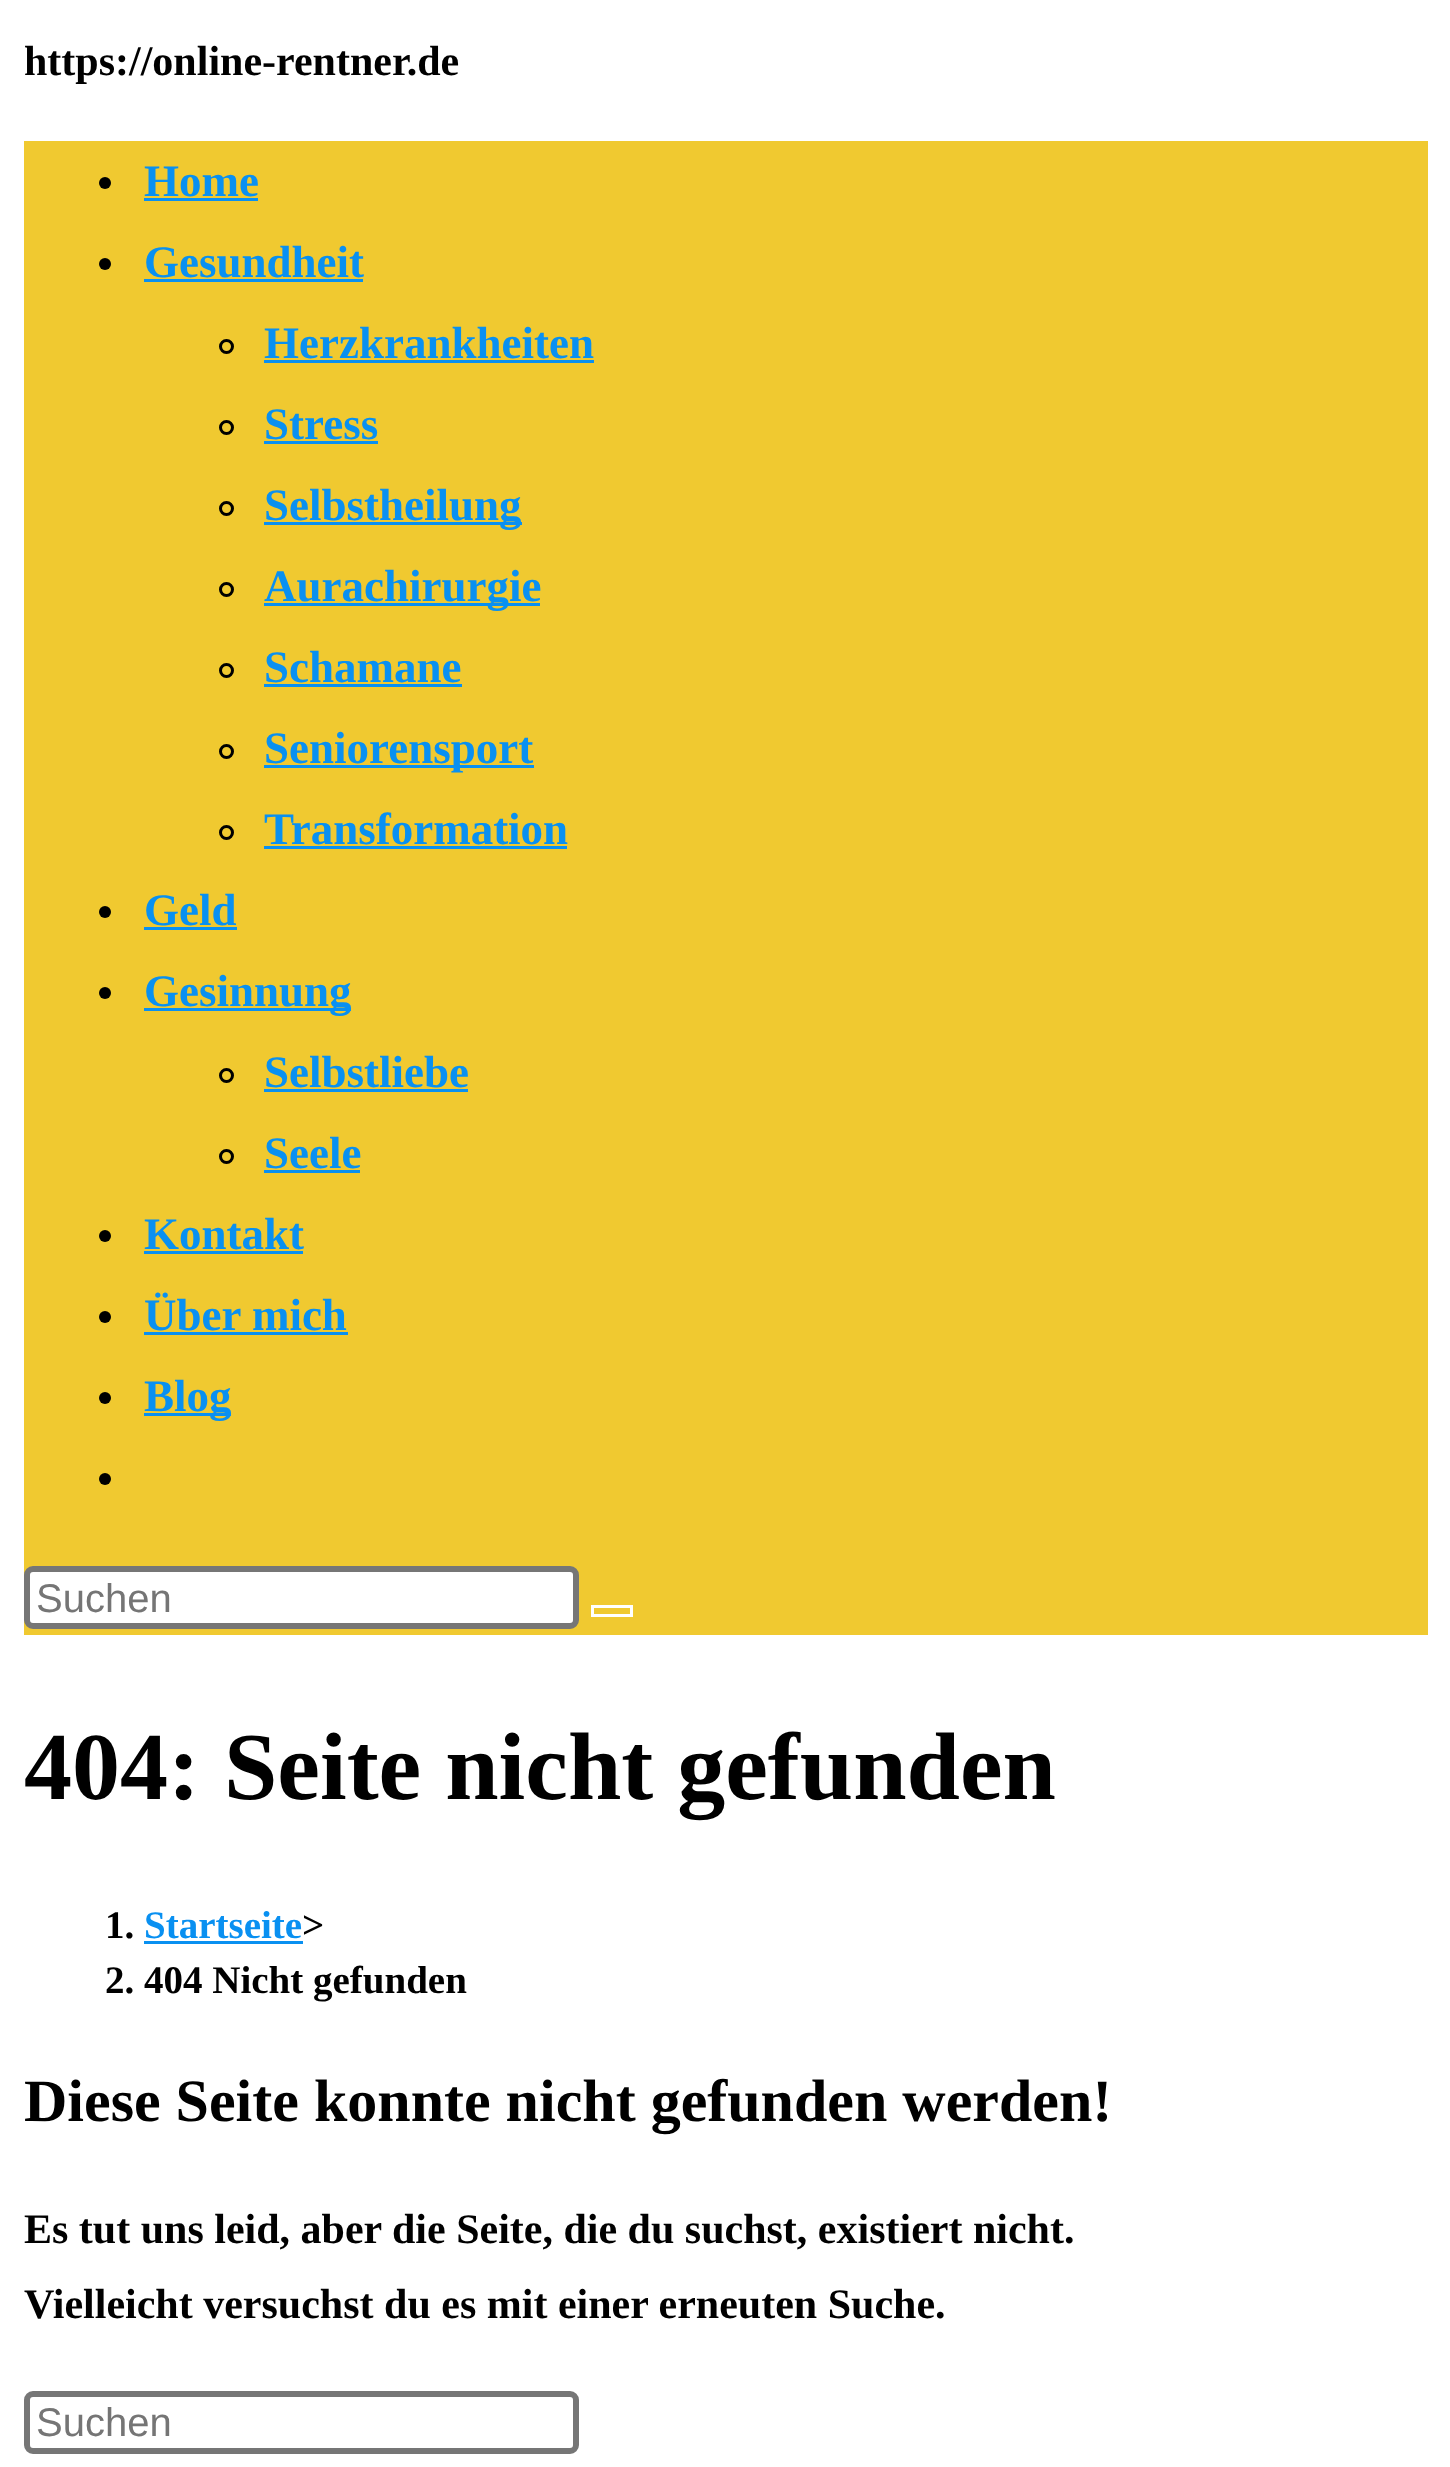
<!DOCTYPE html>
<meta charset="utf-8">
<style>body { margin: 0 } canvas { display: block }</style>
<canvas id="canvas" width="1450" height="2467"></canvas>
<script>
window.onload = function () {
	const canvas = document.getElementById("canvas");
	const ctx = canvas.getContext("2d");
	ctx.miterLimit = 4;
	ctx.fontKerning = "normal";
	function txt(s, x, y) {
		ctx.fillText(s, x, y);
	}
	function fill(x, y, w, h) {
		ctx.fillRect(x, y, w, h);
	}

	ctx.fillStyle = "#FFFFFF";
	fill(0, 0, 1450, 2467);
	ctx.fillStyle = "#F0C930";
	fill(24, 141, 1404, 1494);
	ctx.fillStyle = "#000000";
	ctx.beginPath();
	ctx.arc(105, 183, 6, 0, Math.PI * 2);
	ctx.fill();
	ctx.fillStyle = "#0990F1";
	fill(144, 198, 114, 3);
	ctx.fillStyle = "#000000";
	ctx.beginPath();
	ctx.arc(105, 264, 6, 0, Math.PI * 2);
	ctx.fill();
	ctx.fillStyle = "#0990F1";
	fill(144, 279, 219, 3);
	ctx.beginPath();
	ctx.arc(226.5, 346.5, 6, 0, Math.PI * 2);
	ctx.strokeStyle = "#000000";
	ctx.lineWidth = 3;
	ctx.stroke();
	fill(264, 360, 330, 3);
	ctx.beginPath();
	ctx.arc(226.5, 427.5, 6, 0, Math.PI * 2);
	ctx.stroke();
	fill(264, 441, 114, 3);
	ctx.beginPath();
	ctx.arc(226.5, 508.5, 6, 0, Math.PI * 2);
	ctx.stroke();
	fill(264, 522, 258, 3);
	ctx.beginPath();
	ctx.arc(226.5, 589.5, 6, 0, Math.PI * 2);
	ctx.stroke();
	fill(264, 603, 276, 3);
	ctx.beginPath();
	ctx.arc(226.5, 670.5, 6, 0, Math.PI * 2);
	ctx.stroke();
	fill(264, 684, 198, 3);
	ctx.beginPath();
	ctx.arc(226.5, 751.5, 6, 0, Math.PI * 2);
	ctx.stroke();
	fill(264, 765, 270, 3);
	ctx.beginPath();
	ctx.arc(226.5, 832.5, 6, 0, Math.PI * 2);
	ctx.stroke();
	fill(264, 846, 303, 3);
	ctx.fillStyle = "#000000";
	ctx.beginPath();
	ctx.arc(105, 912, 6, 0, Math.PI * 2);
	ctx.fill();
	ctx.fillStyle = "#0990F1";
	fill(144, 927, 93, 3);
	ctx.fillStyle = "#000000";
	ctx.beginPath();
	ctx.arc(105, 993, 6, 0, Math.PI * 2);
	ctx.fill();
	ctx.fillStyle = "#0990F1";
	fill(144, 1008, 207, 3);
	ctx.beginPath();
	ctx.arc(226.5, 1075.5, 6, 0, Math.PI * 2);
	ctx.stroke();
	fill(264, 1089, 204, 3);
	ctx.beginPath();
	ctx.arc(226.5, 1156.5, 6, 0, Math.PI * 2);
	ctx.stroke();
	fill(264, 1170, 96, 3);
	ctx.fillStyle = "#000000";
	ctx.beginPath();
	ctx.arc(105, 1236, 6, 0, Math.PI * 2);
	ctx.fill();
	ctx.fillStyle = "#0990F1";
	fill(144, 1251, 159, 3);
	ctx.fillStyle = "#000000";
	ctx.beginPath();
	ctx.arc(105, 1317, 6, 0, Math.PI * 2);
	ctx.fill();
	ctx.fillStyle = "#0990F1";
	fill(144, 1332, 204, 3);
	ctx.fillStyle = "#000000";
	ctx.beginPath();
	ctx.arc(105, 1398, 6, 0, Math.PI * 2);
	ctx.fill();
	ctx.fillStyle = "#0990F1";
	fill(144, 1413, 87, 3);
	ctx.fillStyle = "#000000";
	ctx.beginPath();
	ctx.arc(105, 1479, 6, 0, Math.PI * 2);
	ctx.fill();
	ctx.fillStyle = "#FFFFFF";
	ctx.beginPath();
	ctx.roundRect(27, 1569, 549, 57, 6);
	ctx.fill();
	ctx.strokeStyle = "#767676";
	ctx.lineWidth = 6;
	ctx.stroke();
	ctx.strokeStyle = "#FFFFFF";
	ctx.lineWidth = 3;
	ctx.strokeRect(592.5, 1606.5, 39, 9);
	ctx.fillStyle = "#0990F1";
	fill(144, 1941, 159, 3);
	ctx.beginPath();
	ctx.roundRect(27, 2394, 549, 57, 6);
	ctx.strokeStyle = "#767676";
	ctx.lineWidth = 6;
	ctx.stroke();
	ctx.font = "bold 42px Liberation Serif";
	ctx.fillStyle = "#000000";
	txt("https://online-rentner.de", 24, 75);
	ctx.font = "bold 45px Liberation Serif";
	ctx.fillStyle = "#0990F1";
	txt("Home", 144, 196);
	txt("Gesundheit", 144, 277);
	txt("Herzkrankheiten", 264, 358);
	txt("Stress", 264, 439);
	txt("Selbstheilung", 264, 520);
	txt("Aurachirurgie", 264, 601);
	txt("Schamane", 264, 682);
	txt("Seniorensport", 264, 763);
	txt("Transformation", 264, 844);
	txt("Geld", 144, 925);
	txt("Gesinnung", 144, 1006);
	txt("Selbstliebe", 264, 1087);
	txt("Seele", 264, 1168);
	txt("Kontakt", 144, 1249);
	txt("Über mich", 144, 1330);
	txt("Blog", 144, 1411);
	ctx.font = "40px Liberation Sans";
	ctx.fillStyle = "#757575";
	txt("Suchen", 36, 1612);
	ctx.font = "bold 96px Liberation Serif";
	ctx.fillStyle = "#000000";
	txt("404: Seite nicht gefunden", 24, 1799);
	ctx.font = "bold 39px Liberation Serif";
	txt("1.", 105, 1938);
	ctx.fillStyle = "#0990F1";
	txt("Startseite", 144, 1938);
	ctx.fillStyle = "#000000";
	txt(">", 302, 1938);
	txt("2. 404 Nicht gefunden", 105, 1993);
	ctx.font = "bold 60px Liberation Serif";
	txt("Diese Seite konnte nicht gefunden werden!", 24, 2121);
	ctx.font = "bold 42px Liberation Serif";
	txt("Es tut uns leid, aber die Seite, die du suchst, existiert nicht.", 24, 2243);
	txt("Vielleicht versuchst du es mit einer erneuten Suche.", 24, 2318);
	ctx.font = "40px Liberation Sans";
	ctx.fillStyle = "#757575";
	txt("Suchen", 36, 2436);
};
</script>
